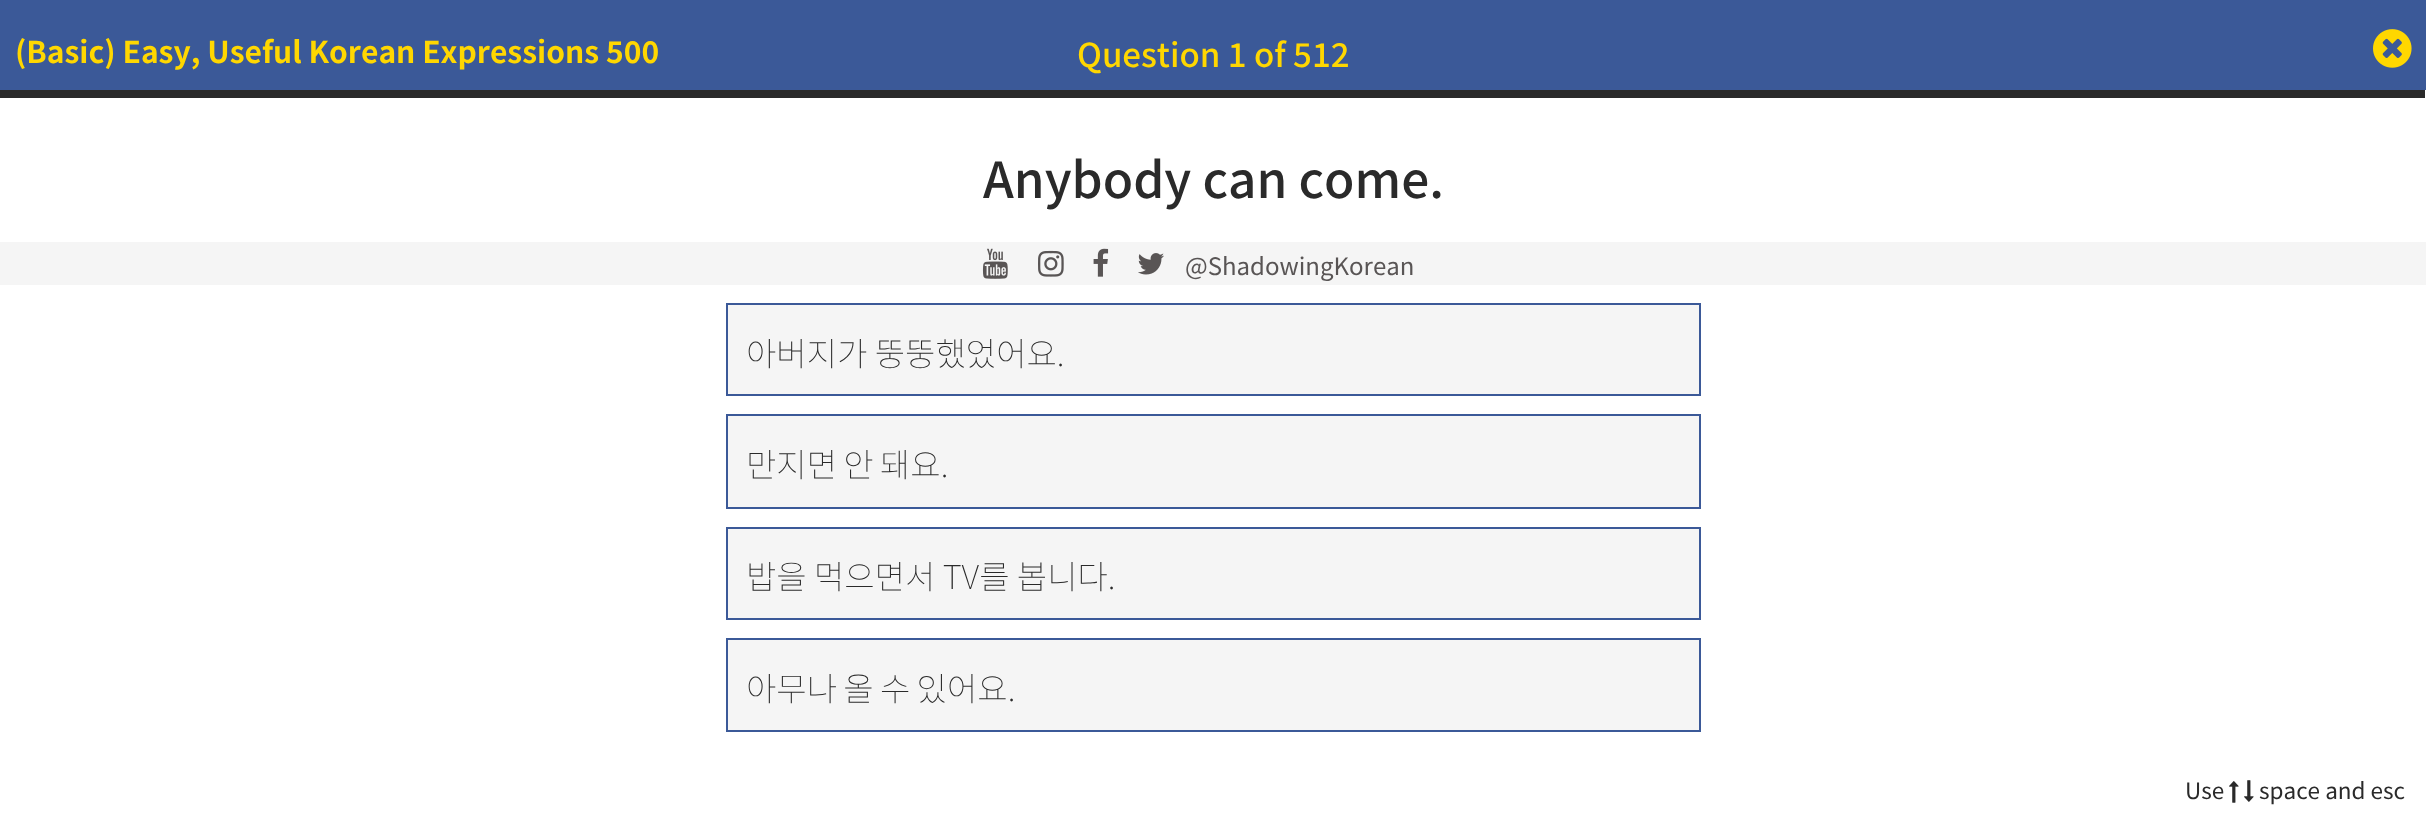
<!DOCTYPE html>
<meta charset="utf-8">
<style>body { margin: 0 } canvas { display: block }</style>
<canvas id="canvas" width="2426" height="827"></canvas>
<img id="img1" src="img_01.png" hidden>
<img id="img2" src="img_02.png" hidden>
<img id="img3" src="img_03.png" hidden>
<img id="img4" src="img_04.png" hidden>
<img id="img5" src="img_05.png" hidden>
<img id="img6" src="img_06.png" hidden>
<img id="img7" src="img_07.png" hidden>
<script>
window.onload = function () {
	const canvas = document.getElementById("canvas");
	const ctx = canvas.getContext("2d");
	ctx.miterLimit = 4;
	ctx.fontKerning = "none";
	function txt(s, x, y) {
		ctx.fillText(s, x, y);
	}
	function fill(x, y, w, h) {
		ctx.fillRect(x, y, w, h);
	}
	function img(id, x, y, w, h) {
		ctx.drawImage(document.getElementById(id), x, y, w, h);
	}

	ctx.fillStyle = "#FFFFFF";
	fill(0, 0, 2426, 827);
	ctx.fillStyle = "#3B5998";
	fill(0, 0, 2426, 90);
	img("img1", 2373, 29, 39, 39);
	ctx.fillStyle = "#2A2A2A";
	fill(0, 90, 2425, 8);
	ctx.fillStyle = "#F5F5F5";
	fill(0, 242, 2426, 43);
	img("img2", 982, 248, 26, 31);
	img("img3", 1038, 250, 26, 27);
	img("img4", 1093, 248, 16, 29);
	img("img5", 1138, 253, 26, 22);
	ctx.beginPath();
	ctx.rect(727, 304, 973, 91);
	ctx.fill();
	ctx.strokeStyle = "#3B5998";
	ctx.lineWidth = 2;
	ctx.stroke();
	ctx.beginPath();
	ctx.rect(727, 415, 973, 93);
	ctx.fill();
	ctx.stroke();
	ctx.beginPath();
	ctx.rect(727, 528, 973, 91);
	ctx.fill();
	ctx.stroke();
	ctx.beginPath();
	ctx.rect(727, 639, 973, 92);
	ctx.fill();
	ctx.stroke();
	img("img6", 2229, 781, 10, 22);
	img("img7", 2244, 780, 10, 22);
	ctx.font = "bold 30px Noto Sans KR";
	ctx.fillStyle = "#FFD700";
	txt("(Basic) Easy, Useful Korean Expressions", 15, 63);
	txt("500", 606, 63);
	ctx.font = "500 33px Noto Sans KR";
	txt("Question 1 of 512", 1077, 67);
	ctx.font = "500 49.5px Noto Sans KR";
	ctx.fillStyle = "#2A2A2A";
	txt("Anybody can come.", 983, 198);
	ctx.font = "24px Noto Sans KR";
	ctx.fillStyle = "#595555";
	txt("@ShadowingKorean", 1185, 275);
	ctx.font = "100 33px Noto Sans KR";
	ctx.fillStyle = "#2A2A2A";
	txt("아버지가 뚱뚱했었어요.", 746, 366);
	ctx.wordSpacing = "-1px";
	txt("만지면 안 돼요.", 746, 477);
	ctx.wordSpacing = "0px";
	txt("밥을 먹으면서 TV를 봅니다.", 746, 589);
	ctx.wordSpacing = "-1px";
	txt("아무나 올 수 있어요.", 746, 701);
	ctx.wordSpacing = "0px";
	ctx.font = "22.5px Noto Sans KR";
	txt("Use", 2185, 799);
	txt("space and esc", 2259, 799);
};
</script>
